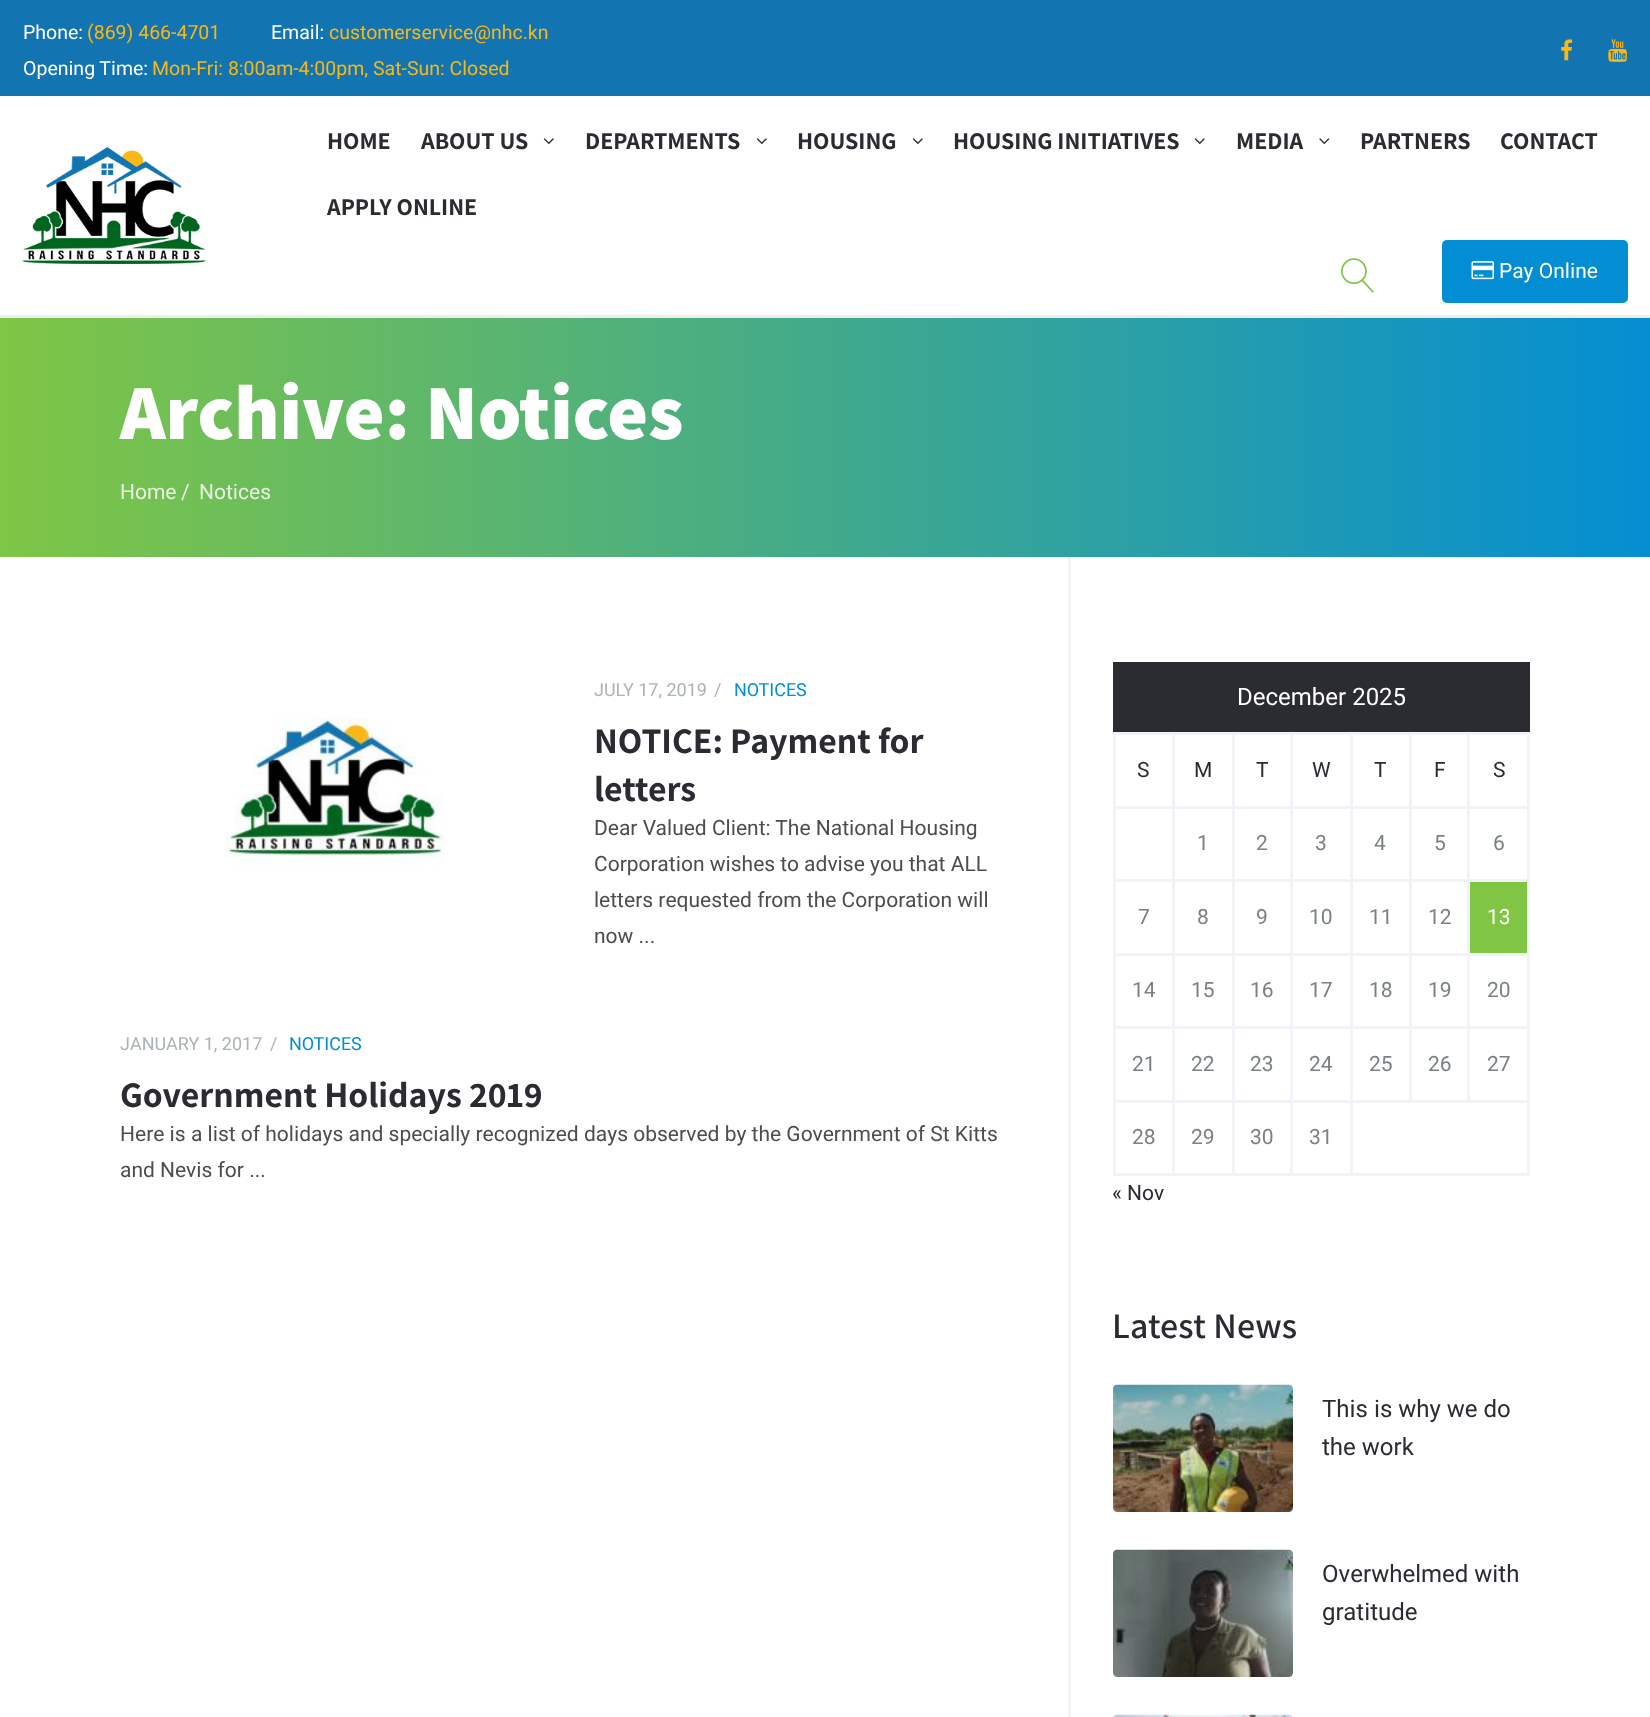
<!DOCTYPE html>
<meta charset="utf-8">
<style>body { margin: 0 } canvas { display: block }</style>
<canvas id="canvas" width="1650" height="1717"></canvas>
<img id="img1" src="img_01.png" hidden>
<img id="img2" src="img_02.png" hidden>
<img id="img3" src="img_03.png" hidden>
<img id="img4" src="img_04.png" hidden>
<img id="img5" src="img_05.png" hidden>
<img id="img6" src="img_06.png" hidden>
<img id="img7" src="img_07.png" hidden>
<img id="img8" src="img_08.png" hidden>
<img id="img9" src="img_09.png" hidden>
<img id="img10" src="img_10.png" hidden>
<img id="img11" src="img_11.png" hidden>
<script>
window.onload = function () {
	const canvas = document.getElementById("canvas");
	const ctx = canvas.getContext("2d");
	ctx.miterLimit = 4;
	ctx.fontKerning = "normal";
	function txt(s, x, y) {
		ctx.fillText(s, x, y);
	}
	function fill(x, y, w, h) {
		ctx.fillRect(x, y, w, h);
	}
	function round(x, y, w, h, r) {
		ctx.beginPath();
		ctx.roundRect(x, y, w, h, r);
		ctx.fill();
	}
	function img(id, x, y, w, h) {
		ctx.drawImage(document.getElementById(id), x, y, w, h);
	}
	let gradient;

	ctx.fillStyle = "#FFFFFF";
	fill(0, 0, 1650, 1717);
	ctx.fillStyle = "#1275B2";
	fill(0, 0, 1650, 96);
	img("img1", 1561, 39, 12, 22);
	img("img2", 1608, 39, 19, 23);
	ctx.fillStyle = "#EDEDED";
	fill(0, 315, 1650, 3);
	img("img3", 22, 147, 184, 117);
	img("img4", 543, 138, 11, 7);
	img("img4", 756, 138, 11, 7);
	img("img4", 912, 138, 11, 7);
	img("img4", 1194, 138, 11, 7);
	img("img5", 1319, 138, 11, 7);
	img("img6", 1341, 258, 33, 35);
	ctx.fillStyle = "#038ED3";
	round(1442, 240, 186, 63, 5);
	img("img7", 1471, 261, 23, 19);
	gradient = ctx.createLinearGradient(0, 437, 1650, 437);
	gradient.addColorStop(0, "#7FC645");
	gradient.addColorStop(1, "#048ED2");
	ctx.fillStyle = gradient;
	fill(0, 318, 1650, 239);
	img("img8", 225, 718, 220, 148);
	ctx.fillStyle = "#F2F3F6";
	fill(1068, 557, 3, 1160);
	ctx.fillStyle = "#2A2C32";
	fill(1113, 662, 417, 70);
	ctx.fillStyle = "#F2F3F6";
	fill(1467, 732, 63, 3);
	fill(1467, 806, 63, 3);
	fill(1467, 879, 63, 3);
	fill(1467, 953, 63, 3);
	fill(1467, 1026, 63, 3);
	fill(1350, 1100, 180, 3);
	fill(1467, 1026, 3, 77);
	fill(1409, 1026, 61, 3);
	fill(1467, 953, 3, 76);
	fill(1409, 953, 61, 3);
	fill(1467, 879, 3, 77);
	fill(1409, 879, 61, 3);
	fill(1467, 806, 3, 76);
	fill(1409, 806, 61, 3);
	fill(1467, 732, 3, 77);
	fill(1409, 732, 61, 3);
	fill(1409, 1026, 3, 77);
	fill(1350, 1026, 62, 3);
	fill(1409, 953, 3, 76);
	fill(1350, 953, 62, 3);
	fill(1409, 879, 3, 77);
	fill(1350, 879, 62, 3);
	fill(1409, 806, 3, 76);
	fill(1350, 806, 62, 3);
	fill(1409, 732, 3, 77);
	fill(1350, 732, 62, 3);
	fill(1527, 1100, 3, 76);
	fill(1350, 1173, 180, 3);
	fill(1350, 1100, 3, 76);
	fill(1290, 1100, 63, 3);
	fill(1350, 1026, 3, 77);
	fill(1290, 1026, 63, 3);
	fill(1350, 953, 3, 76);
	fill(1290, 953, 63, 3);
	fill(1350, 879, 3, 77);
	fill(1290, 879, 63, 3);
	fill(1350, 806, 3, 76);
	fill(1290, 806, 63, 3);
	fill(1350, 732, 3, 77);
	fill(1290, 732, 63, 3);
	fill(1290, 1173, 63, 3);
	fill(1290, 1100, 3, 76);
	fill(1232, 1100, 61, 3);
	fill(1290, 1026, 3, 77);
	fill(1232, 1026, 61, 3);
	fill(1290, 953, 3, 76);
	fill(1232, 953, 61, 3);
	fill(1290, 879, 3, 77);
	fill(1232, 879, 61, 3);
	fill(1290, 806, 3, 76);
	fill(1232, 806, 61, 3);
	fill(1290, 732, 3, 77);
	fill(1232, 732, 61, 3);
	fill(1232, 1173, 61, 3);
	fill(1232, 1100, 3, 76);
	fill(1172, 1100, 63, 3);
	fill(1232, 1026, 3, 77);
	fill(1172, 1026, 63, 3);
	fill(1232, 953, 3, 76);
	fill(1172, 953, 63, 3);
	fill(1232, 879, 3, 77);
	fill(1172, 879, 63, 3);
	fill(1232, 806, 3, 76);
	fill(1172, 806, 63, 3);
	fill(1232, 732, 3, 77);
	fill(1172, 732, 63, 3);
	fill(1172, 1173, 63, 3);
	fill(1172, 1100, 3, 76);
	fill(1113, 1100, 62, 3);
	fill(1172, 1026, 3, 77);
	fill(1113, 1026, 62, 3);
	fill(1172, 953, 3, 76);
	fill(1113, 953, 62, 3);
	fill(1172, 879, 3, 77);
	fill(1113, 879, 62, 3);
	fill(1172, 806, 3, 76);
	fill(1113, 806, 62, 3);
	fill(1172, 732, 3, 77);
	fill(1113, 732, 62, 3);
	fill(1113, 1173, 62, 3);
	fill(1113, 1100, 3, 76);
	fill(1113, 1026, 3, 77);
	fill(1113, 953, 3, 76);
	fill(1113, 879, 3, 77);
	fill(1113, 806, 3, 76);
	fill(1113, 732, 3, 77);
	fill(1527, 1026, 3, 77);
	fill(1527, 953, 3, 76);
	fill(1527, 879, 3, 77);
	fill(1527, 806, 3, 76);
	fill(1527, 732, 3, 77);
	ctx.fillStyle = "#80C644";
	fill(1470, 882, 57, 71);
	img("img9", 1113, 1384, 180, 128);
	img("img10", 1113, 1549, 180, 128);
	img("img11", 1113, 1714, 180, 3);
	ctx.font = "19.5px Heebo";
	ctx.fillStyle = "#FFFFFF";
	txt("Phone:", 23, 39);
	ctx.fillStyle = "#FBB716";
	txt("(869) 466-4701", 87, 39);
	ctx.fillStyle = "#FFFFFF";
	txt("Email:", 271, 39);
	ctx.fillStyle = "#FBB716";
	txt("customerservice@nhc.kn", 329, 39);
	ctx.fillStyle = "#FFFFFF";
	txt("Opening Time:", 23, 75);
	ctx.fillStyle = "#FBB716";
	txt("Mon-Fri: 8:00am-4:00pm, Sat-Sun: Closed", 152, 75);
	ctx.font = "bold 24px Assistant";
	ctx.fillStyle = "#2A2C32";
	txt("HOME", 327, 149);
	txt("ABOUT US", 421, 149);
	txt("DEPARTMENTS", 585, 149);
	txt("HOUSING", 797, 149);
	txt("HOUSING INITIATIVES", 953, 149);
	txt("MEDIA", 1236, 149);
	txt("PARTNERS", 1360, 149);
	txt("CONTACT", 1500, 149);
	txt("APPLY ONLINE", 327, 215);
	ctx.font = "21px Heebo";
	ctx.fillStyle = "#FFFFFF";
	txt("Pay Online", 1499, 278);
	ctx.font = "800 78px Assistant";
	txt("Archive: Notices", 120, 439);
	ctx.font = "21px Heebo";
	ctx.fillStyle = "#E9F4E2";
	txt("Home", 120, 499);
	txt("/", 181, 499);
	txt("Notices", 199, 499);
	ctx.font = "18px Heebo";
	ctx.fillStyle = "#AAB3B6";
	txt("JULY 17, 2019", 594, 696);
	txt("/", 714, 696);
	ctx.fillStyle = "#038ED3";
	txt("NOTICES", 734, 696);
	ctx.font = "bold 36px Assistant";
	ctx.fillStyle = "#2A2C32";
	txt("NOTICE: Payment for", 594, 753);
	txt("letters", 594, 801);
	ctx.font = "21px Heebo";
	ctx.fillStyle = "#4B4E50";
	txt("Dear Valued Client: The National Housing", 594, 835);
	txt("Corporation wishes to advise you that ALL", 594, 871);
	txt("letters requested from the Corporation will", 594, 907);
	txt("now ...", 594, 943);
	ctx.font = "18px Heebo";
	ctx.fillStyle = "#AAB3B6";
	txt("JANUARY 1, 2017", 120, 1050);
	txt("/", 270, 1050);
	ctx.fillStyle = "#038ED3";
	txt("NOTICES", 289, 1050);
	ctx.font = "bold 36px Assistant";
	ctx.fillStyle = "#2A2C32";
	txt("Government Holidays 2019", 120, 1107);
	ctx.font = "21px Heebo";
	ctx.fillStyle = "#4B4E50";
	txt("Here is a list of holidays and specially recognized days observed by the Government of St Kitts", 120, 1141);
	txt("and Nevis for ...", 120, 1177);
	ctx.font = "24px Heebo";
	ctx.fillStyle = "#FFFFFF";
	txt("December 2025", 1237, 705);
	ctx.font = "21px Heebo";
	ctx.fillStyle = "#2A2C32";
	txt("S", 1137, 777);
	txt("M", 1194, 777);
	txt("T", 1256, 777);
	txt("W", 1312, 777);
	txt("T", 1374, 777);
	txt("F", 1434, 777);
	txt("S", 1493, 777);
	ctx.fillStyle = "#7B8285";
	txt("1", 1197, 850);
	txt("2", 1256, 850);
	txt("3", 1315, 850);
	txt("4", 1374, 850);
	txt("5", 1434, 850);
	txt("6", 1493, 850);
	txt("7", 1138, 924);
	txt("8", 1197, 924);
	txt("9", 1256, 924);
	txt("10", 1309, 924);
	txt("11", 1369, 924);
	txt("12", 1428, 924);
	ctx.fillStyle = "#FFFFFF";
	txt("13", 1487, 924);
	ctx.fillStyle = "#7B8285";
	txt("14", 1132, 997);
	txt("15", 1191, 997);
	txt("16", 1250, 997);
	txt("17", 1309, 997);
	txt("18", 1369, 997);
	txt("19", 1428, 997);
	txt("20", 1487, 997);
	txt("21", 1132, 1071);
	txt("22", 1191, 1071);
	txt("23", 1250, 1071);
	txt("24", 1309, 1071);
	txt("25", 1369, 1071);
	txt("26", 1428, 1071);
	txt("27", 1487, 1071);
	txt("28", 1132, 1144);
	txt("29", 1191, 1144);
	txt("30", 1250, 1144);
	txt("31", 1309, 1144);
	ctx.fillStyle = "#2A2C32";
	txt("« Nov", 1112, 1200);
	ctx.letterSpacing = "0.1px";
	ctx.font = "600 36px Assistant";
	txt("Latest News", 1112, 1338);
	ctx.letterSpacing = "0px";
	ctx.font = "24px Heebo";
	txt("This is why we do", 1322, 1417);
	txt("the work", 1322, 1455);
	txt("Overwhelmed with", 1322, 1582);
	txt("gratitude", 1322, 1620);
};
</script>
